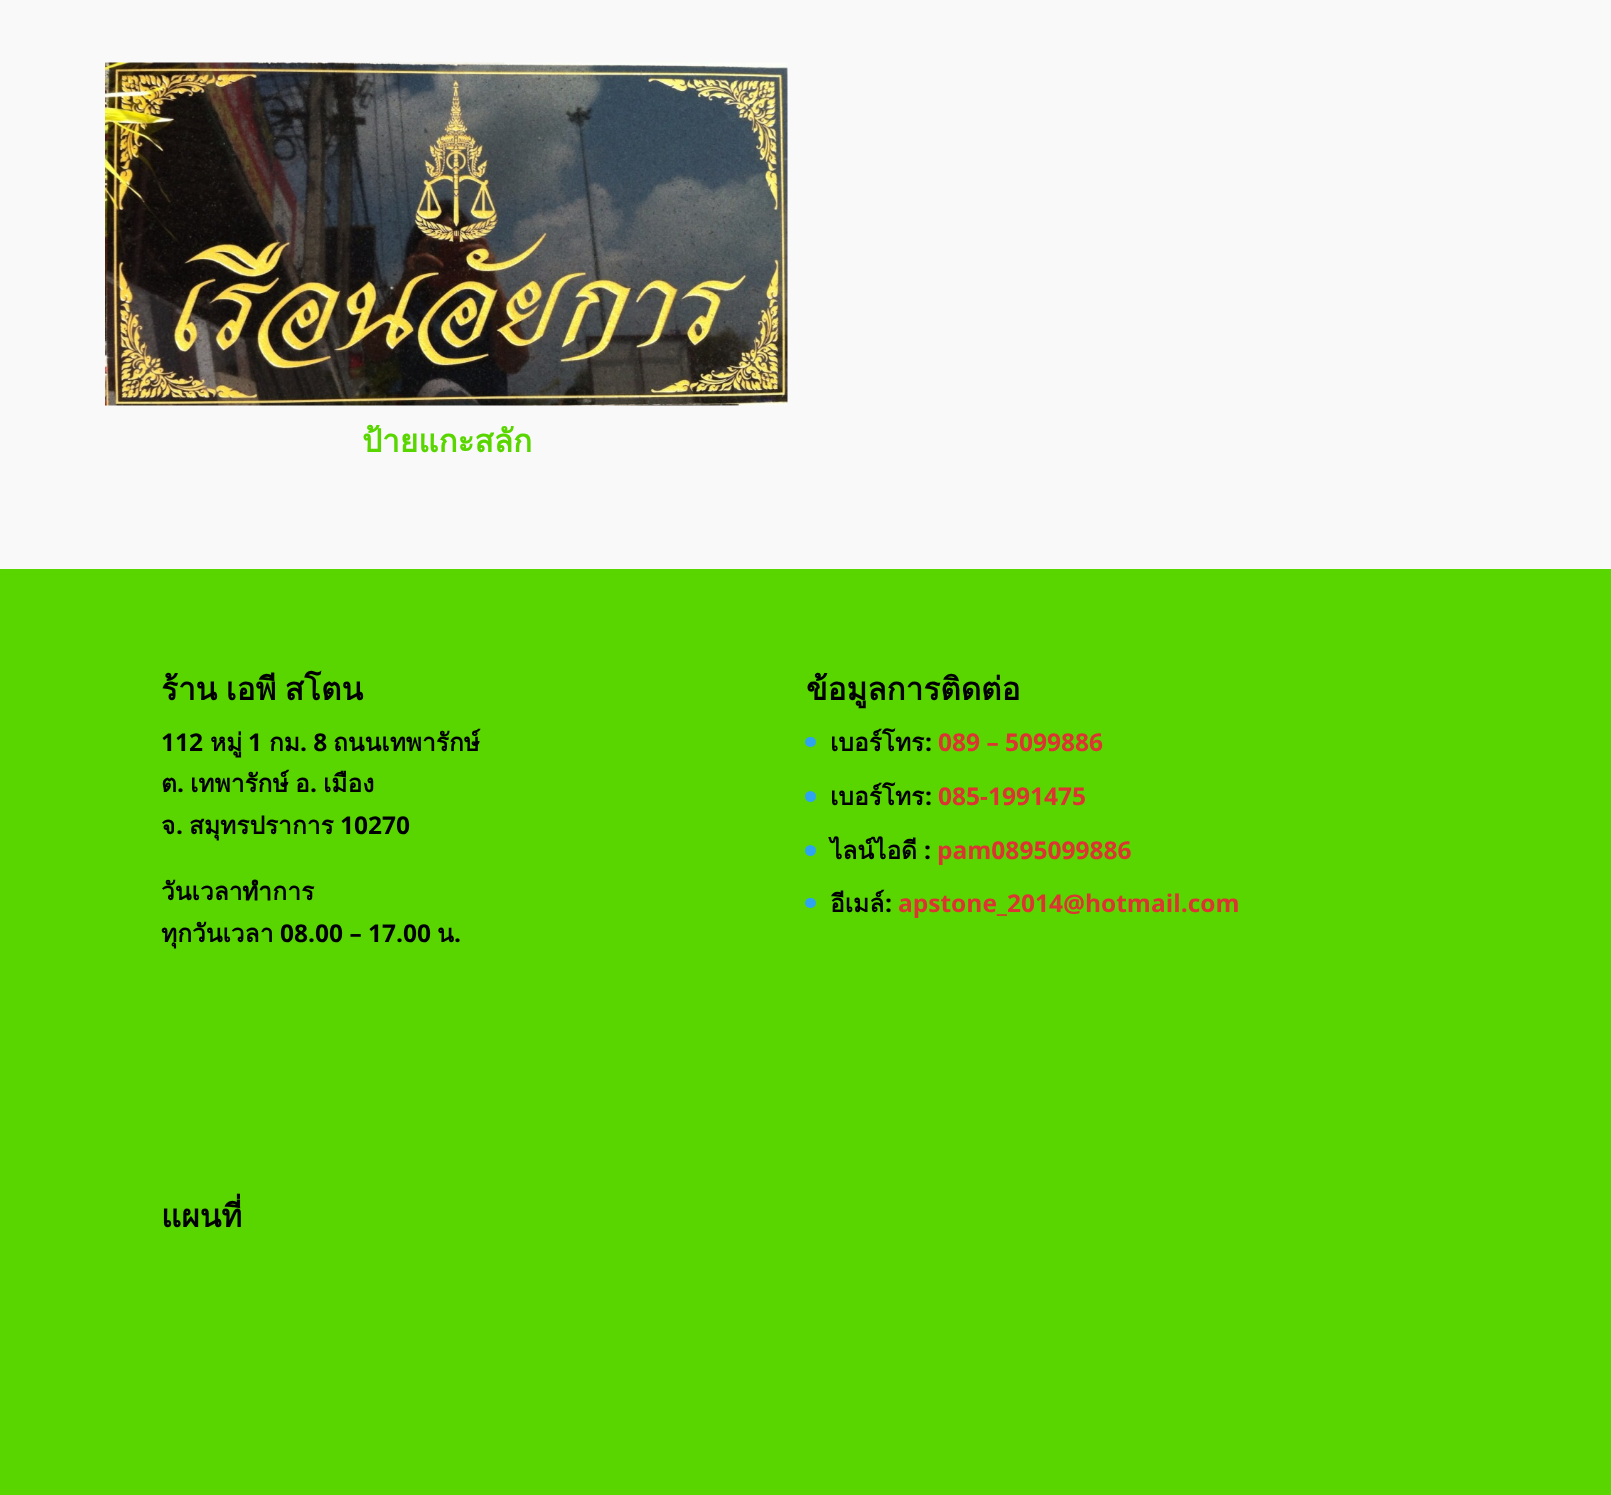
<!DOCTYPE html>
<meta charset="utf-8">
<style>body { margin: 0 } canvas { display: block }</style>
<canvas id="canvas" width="1611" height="1495"></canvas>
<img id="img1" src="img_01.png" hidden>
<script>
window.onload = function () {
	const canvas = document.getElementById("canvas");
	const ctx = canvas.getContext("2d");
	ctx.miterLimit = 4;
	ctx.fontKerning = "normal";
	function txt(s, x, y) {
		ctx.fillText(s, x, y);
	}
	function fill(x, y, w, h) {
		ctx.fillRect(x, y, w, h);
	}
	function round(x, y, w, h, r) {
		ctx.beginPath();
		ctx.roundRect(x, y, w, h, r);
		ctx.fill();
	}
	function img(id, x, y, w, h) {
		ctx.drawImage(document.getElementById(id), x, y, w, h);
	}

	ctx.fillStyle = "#59D600";
	fill(0, 0, 1611, 1495);
	ctx.fillStyle = "#F9F9F9";
	fill(0, 0, 1611, 569);
	img("img1", 105, 62, 683, 344);
	ctx.fillStyle = "#2EA3F2";
	round(805, 737, 11, 10, 5);
	ctx.beginPath();
	ctx.arc(810.5, 796.5, 5.5, 0, Math.PI * 2);
	ctx.fill();
	ctx.beginPath();
	ctx.arc(810.5, 850.5, 5.5, 0, Math.PI * 2);
	ctx.fill();
	round(805, 898, 11, 10, 5);
	ctx.font = "bold 31.5px Loma";
	ctx.fillStyle = "#59D600";
	txt("ป้ายแกะสลัก", 362, 452);
	ctx.wordSpacing = "-2px";
	ctx.fillStyle = "#000000";
	txt("ร้าน เอพี สโตน", 161, 700);
	ctx.wordSpacing = "0px";
	ctx.font = "bold 24.5px Open Sans";
	txt("112", 161, 751);
	ctx.font = "bold 24.5px Loma";
	txt("หมู่", 210, 751);
	ctx.font = "bold 24.5px Open Sans";
	txt("1", 248, 751);
	ctx.font = "bold 24.5px Loma";
	txt("กม", 269, 751);
	ctx.font = "bold 24.5px Open Sans";
	txt(". 8", 300, 751);
	ctx.font = "bold 24.5px Loma";
	txt("ถนนเทพารักษ์", 333, 751);
	txt("ต", 161, 792);
	ctx.font = "bold 24.5px Open Sans";
	txt(".", 177, 792);
	ctx.font = "bold 24.5px Loma";
	txt("เทพารักษ์", 190, 792);
	txt("อ", 295, 792);
	ctx.font = "bold 24.5px Open Sans";
	txt(".", 310, 792);
	ctx.font = "bold 24.5px Loma";
	txt("เมือง", 323, 792);
	txt("จ", 161, 834);
	ctx.font = "bold 24.5px Open Sans";
	txt(".", 176, 834);
	ctx.font = "bold 24.5px Loma";
	txt("สมุทรปราการ", 189, 834);
	ctx.font = "bold 24.5px Open Sans";
	txt("10270", 340, 834);
	ctx.font = "bold 24.5px Loma";
	txt("วันเวลาทำการ", 161, 900);
	txt("ทุกวันเวลา", 161, 942);
	ctx.font = "bold 24.5px Open Sans";
	txt("08.00 – 17.00", 280, 942);
	ctx.font = "bold 24.5px Loma";
	txt("น", 437, 942);
	ctx.font = "bold 24.5px Open Sans";
	txt(".", 454, 942);
	ctx.font = "bold 31.5px Loma";
	txt("ข้อมูลการติดต่อ", 806, 700);
	ctx.font = "bold 24.5px Loma";
	txt("เบอร์โทร", 830, 751);
	ctx.font = "bold 24.5px Open Sans";
	txt(":", 925, 751);
	ctx.fillStyle = "#DD3333";
	txt("089 – 5099886", 938, 751);
	ctx.font = "bold 24.5px Loma";
	ctx.fillStyle = "#000000";
	txt("เบอร์โทร", 830, 805);
	ctx.font = "bold 24.5px Open Sans";
	txt(":", 925, 805);
	ctx.fillStyle = "#DD3333";
	txt("085-1991475", 938, 805);
	ctx.font = "bold 24.5px Loma";
	ctx.fillStyle = "#000000";
	txt("ไลน์ไอดี", 830, 859);
	ctx.font = "bold 24.5px Open Sans";
	txt(":", 924, 859);
	ctx.fillStyle = "#DD3333";
	txt("pam0895099886", 937, 859);
	ctx.font = "bold 24.5px Loma";
	ctx.fillStyle = "#000000";
	txt("อีเมล์", 830, 912);
	ctx.font = "bold 24.5px Open Sans";
	txt(":", 885, 912);
	ctx.fillStyle = "#DD3333";
	txt("apstone_2014@hotmail.com", 898, 912);
	ctx.font = "bold 31.5px Loma";
	ctx.fillStyle = "#000000";
	txt("แผนที่", 161, 1227);
};
</script>
